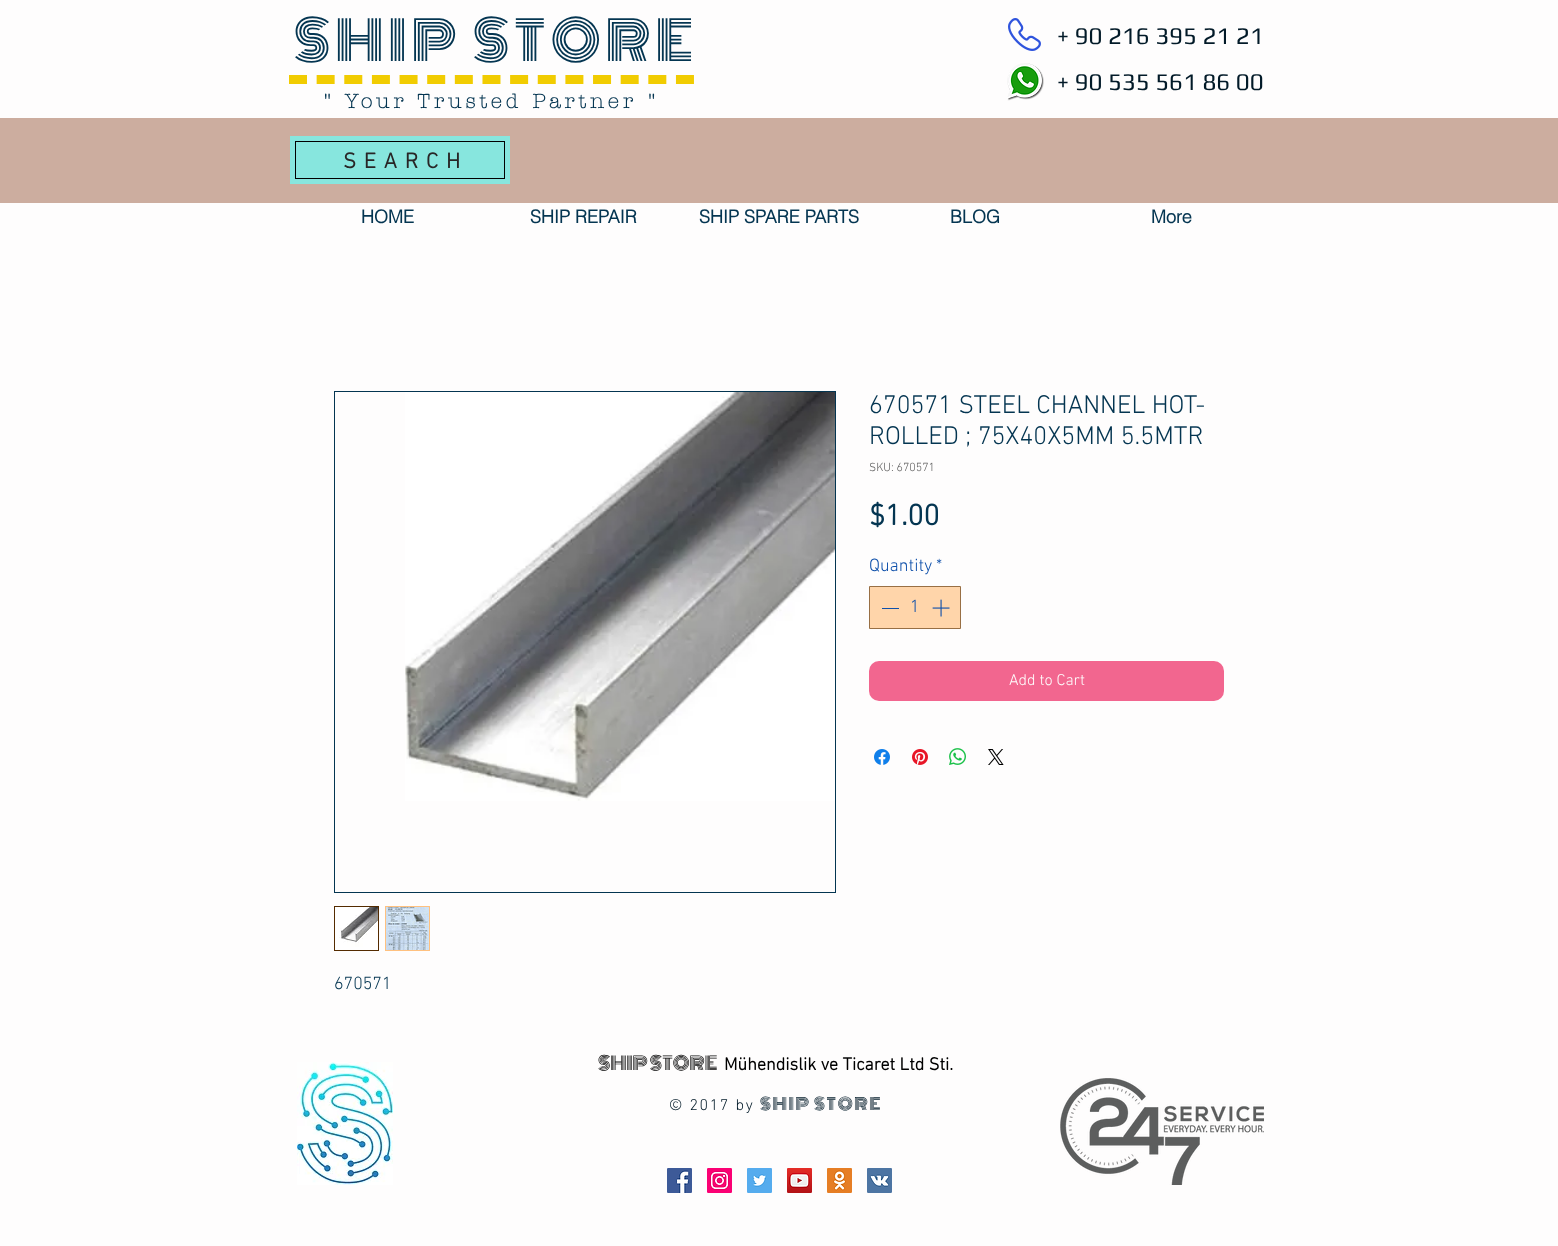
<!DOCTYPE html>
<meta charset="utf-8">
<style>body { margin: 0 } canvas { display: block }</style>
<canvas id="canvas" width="1558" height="1246"></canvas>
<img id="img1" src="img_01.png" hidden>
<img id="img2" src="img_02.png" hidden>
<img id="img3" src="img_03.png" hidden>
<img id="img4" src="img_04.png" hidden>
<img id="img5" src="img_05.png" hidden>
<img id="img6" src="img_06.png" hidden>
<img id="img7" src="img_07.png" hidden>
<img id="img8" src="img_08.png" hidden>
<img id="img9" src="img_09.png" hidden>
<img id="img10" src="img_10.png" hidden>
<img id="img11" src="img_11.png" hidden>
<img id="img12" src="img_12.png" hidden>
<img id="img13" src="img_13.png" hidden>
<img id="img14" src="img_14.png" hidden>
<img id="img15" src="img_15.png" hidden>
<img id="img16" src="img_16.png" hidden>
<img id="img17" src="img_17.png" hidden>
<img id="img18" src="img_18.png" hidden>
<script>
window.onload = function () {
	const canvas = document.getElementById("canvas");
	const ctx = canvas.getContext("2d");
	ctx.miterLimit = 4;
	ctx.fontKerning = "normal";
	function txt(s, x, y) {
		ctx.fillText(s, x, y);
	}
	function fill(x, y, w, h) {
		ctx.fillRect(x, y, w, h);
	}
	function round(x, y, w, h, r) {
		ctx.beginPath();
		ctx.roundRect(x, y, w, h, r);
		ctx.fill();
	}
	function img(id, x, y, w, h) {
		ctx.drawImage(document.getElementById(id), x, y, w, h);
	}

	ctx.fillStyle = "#FEFDFD";
	fill(0, 0, 1558, 1246);
	img("img1", 1008, 18, 33, 33);
	ctx.beginPath();
	ctx.moveTo(289, 79.5);
	ctx.lineTo(694, 79.5);
	ctx.strokeStyle = "#F1CC01";
	ctx.lineWidth = 9;
	ctx.setLineDash([18, 9.64]);
	ctx.stroke();
	img("img2", 1007, 63, 37, 38);
	ctx.fillStyle = "#CCAD9F";
	fill(0, 118, 1558, 85);
	ctx.fillStyle = "#87E6DE";
	fill(290, 136, 220, 48);
	ctx.strokeStyle = "#000000";
	ctx.lineWidth = 1;
	ctx.setLineDash([]);
	ctx.strokeRect(295.5, 141.5, 209, 37);
	ctx.fillStyle = "#FFD5AA";
	ctx.beginPath();
	ctx.rect(869.5, 586.5, 91, 42);
	ctx.fill();
	ctx.strokeStyle = "#986F44";
	ctx.stroke();
	ctx.fillStyle = "#0F50AA";
	fill(882, 608, 17, 1);
	img("img3", 932, 599, 18, 18);
	ctx.fillStyle = "#F2668F";
	round(869, 661, 355, 40, 10);
	img("img4", 874, 749, 16, 16);
	img("img5", 912, 749, 16, 16);
	img("img6", 949, 748, 17, 17);
	img("img7", 988, 749, 16, 16);
	ctx.strokeStyle = "#043551";
	ctx.strokeRect(334.5, 391.5, 501, 501);
	img("img8", 405, 392, 430, 409);
	ctx.strokeStyle = "#542B00";
	ctx.strokeRect(334.5, 906.5, 44, 44);
	img("img9", 335, 907, 43, 43);
	ctx.fillStyle = "#FFC17F";
	fill(385, 906, 45, 45);
	img("img10", 386, 907, 43, 43);
	img("img11", 297, 1062, 96, 123);
	img("img12", 1060, 1078, 204, 107);
	img("img13", 667, 1168, 25, 25);
	img("img14", 707, 1168, 25, 25);
	img("img15", 747, 1168, 25, 25);
	img("img16", 787, 1168, 25, 25);
	img("img17", 827, 1168, 25, 25);
	img("img18", 867, 1168, 25, 25);
	ctx.letterSpacing = "5.25px";
	ctx.font = "53px Monoton";
	ctx.fillStyle = "#043551";
	txt("SHIP STORE", 294, 61);
	ctx.letterSpacing = "0px";
	ctx.font = "24px Play";
	ctx.fillStyle = "#021A28";
	txt("+ 90 216 395 21 21", 1057, 44);
	txt("+ 90 535 561 86 00", 1057, 90);
	ctx.letterSpacing = "4px";
	ctx.font = "bold 20px 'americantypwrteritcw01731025'";
	ctx.fillStyle = "#043551";
	txt("\" Your Trusted Partner \"", 323, 108);
	ctx.letterSpacing = "7.75px";
	ctx.font = "bold 22px 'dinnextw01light'";
	ctx.fillStyle = "#282626";
	txt("SEARCH", 343, 168);
	ctx.letterSpacing = "0px";
	ctx.font = "bold 18px helvetica";
	ctx.fillStyle = "#043551";
	txt("HOME", 361, 223);
	txt("SHIP REPAIR", 530, 223);
	txt("SHIP SPARE PARTS", 699, 223);
	txt("BLOG", 950, 223);
	txt("More", 1151, 223);
	ctx.font = "300 26px 'dinnextw01light'";
	txt("670571 STEEL CHANNEL HOT-", 869, 413);
	txt("ROLLED ; 75X40X5MM 5.5MTR", 869, 444);
	ctx.font = "300 12px 'dinnextw01light'";
	ctx.fillStyle = "#5C5C5C";
	txt("SKU: 670571", 869, 471);
	ctx.font = "bold 30px 'dinnextw01light'";
	ctx.fillStyle = "#043551";
	txt("$1.00", 869, 525);
	ctx.font = "300 18px 'dinnextw01light'";
	ctx.fillStyle = "#0F50AA";
	txt("Quantity", 869, 571);
	txt("*", 936, 571);
	txt("1", 910, 612);
	ctx.font = "300 16px 'dinnextw01light'";
	ctx.fillStyle = "#FEFDFD";
	txt("Add to Cart", 1009, 685);
	ctx.font = "300 18px 'dinnextw01light'";
	ctx.fillStyle = "#043551";
	txt("670571", 334, 989);
	ctx.font = "18px Monoton";
	ctx.fillStyle = "#000000";
	txt("SHIP STORE", 598, 1070);
	ctx.font = "bold 18px 'dinnextw01light'";
	txt("Mühendislik ve Ticaret Ltd Sti.", 724, 1070);
	ctx.letterSpacing = "1.6px";
	ctx.font = "300 16px 'dinnextw01light'";
	ctx.fillStyle = "#021A28";
	txt("© 2017 by", 669, 1110);
	ctx.font = "16px Monoton";
	txt("SHIP STORE", 760, 1110);
};
</script>
